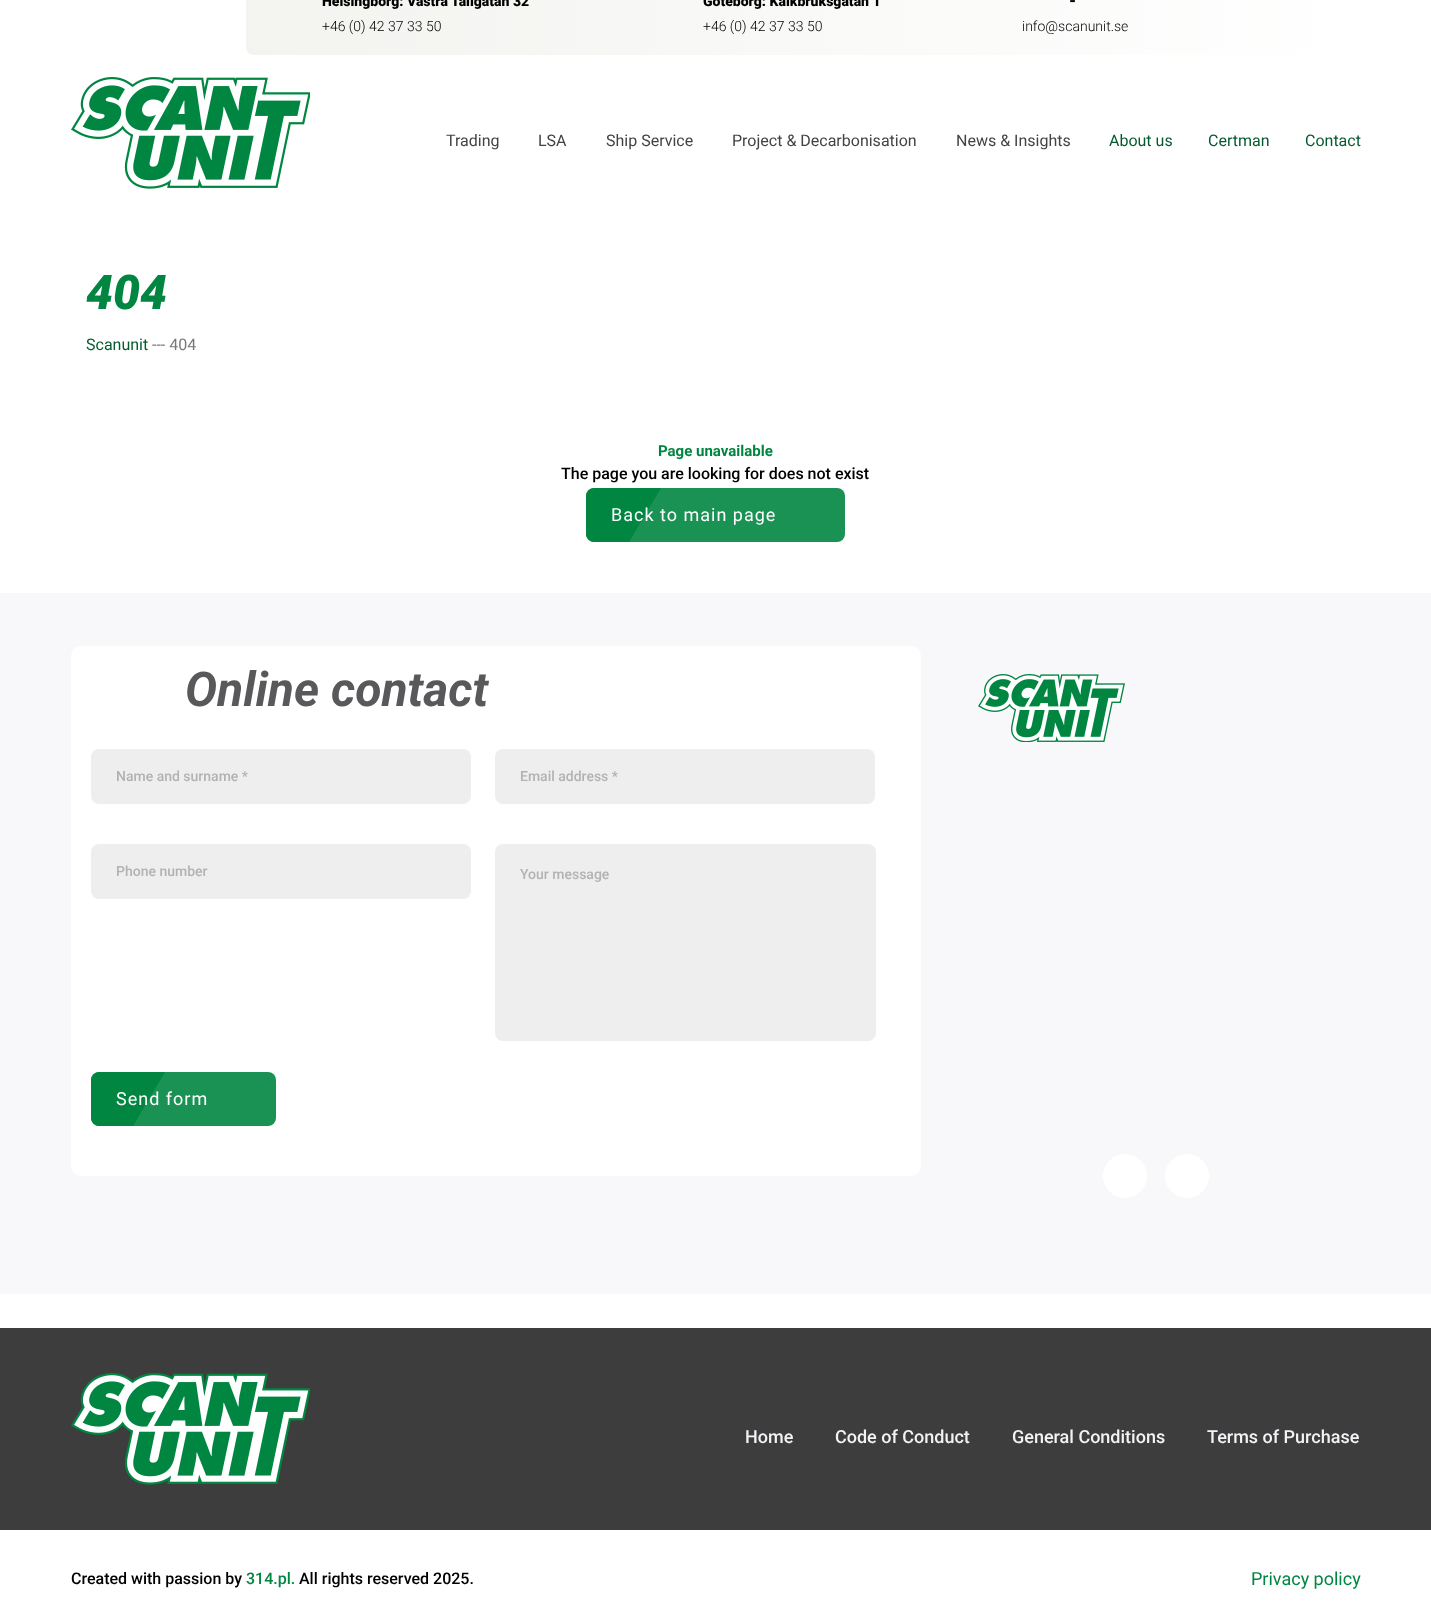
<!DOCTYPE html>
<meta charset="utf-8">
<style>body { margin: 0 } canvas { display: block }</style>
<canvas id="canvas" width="1431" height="1621"></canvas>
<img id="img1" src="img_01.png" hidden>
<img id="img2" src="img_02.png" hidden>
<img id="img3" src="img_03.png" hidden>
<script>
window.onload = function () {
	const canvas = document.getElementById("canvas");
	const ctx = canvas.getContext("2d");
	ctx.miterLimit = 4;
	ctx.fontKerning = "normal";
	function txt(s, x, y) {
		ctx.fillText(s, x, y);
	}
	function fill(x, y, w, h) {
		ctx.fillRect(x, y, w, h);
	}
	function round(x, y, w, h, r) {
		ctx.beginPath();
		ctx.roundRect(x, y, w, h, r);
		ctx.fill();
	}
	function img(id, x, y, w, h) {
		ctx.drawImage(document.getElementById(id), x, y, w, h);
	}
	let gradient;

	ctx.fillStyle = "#FFFFFF";
	fill(0, 0, 1431, 1621);
	gradient = ctx.createLinearGradient(246, 13, 1361, 12);
	gradient.addColorStop(0, "#F3F3F0");
	gradient.addColorStop(1, "#FFFFFF");
	ctx.fillStyle = gradient;
	ctx.beginPath();
	ctx.moveTo(246, -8);
	ctx.lineTo(1361, -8);
	ctx.lineTo(1361, 55);
	ctx.lineTo(254, 55);
	ctx.bezierCurveTo(249.5, 55, 246, 51.5, 246, 47);
	ctx.closePath();
	ctx.fill();
	img("img1", 71, 77, 239, 112);
	ctx.fillStyle = "#1A9254";
	round(586, 488, 259, 54, 8);
	ctx.fillStyle = "#008641";
	ctx.beginPath();
	ctx.moveTo(594, 488);
	ctx.lineTo(661, 488);
	ctx.lineTo(629, 542);
	ctx.lineTo(594, 542);
	ctx.bezierCurveTo(590, 542, 586, 538, 586, 534);
	ctx.lineTo(586, 496);
	ctx.bezierCurveTo(586, 492, 590, 488, 594, 488);
	ctx.closePath();
	ctx.fill();
	ctx.fillStyle = "#F8F7FA";
	fill(0, 593, 1431, 701);
	ctx.fillStyle = "#FFFFFF";
	round(71, 646, 850, 530, 10);
	ctx.fillStyle = "#EEEEEE";
	round(91, 749, 380, 55, 8);
	round(495, 749, 380, 55, 8);
	round(91, 844, 380, 55, 8);
	round(495, 844, 381, 197, 8);
	ctx.fillStyle = "#1A9254";
	round(91, 1072, 185, 54, 8);
	ctx.fillStyle = "#008641";
	ctx.beginPath();
	ctx.moveTo(99, 1072);
	ctx.lineTo(165, 1072);
	ctx.lineTo(133, 1126);
	ctx.lineTo(99, 1126);
	ctx.bezierCurveTo(95, 1126, 91, 1122, 91, 1118);
	ctx.lineTo(91, 1080);
	ctx.bezierCurveTo(91, 1076, 95, 1072, 99, 1072);
	ctx.closePath();
	ctx.fill();
	img("img2", 978, 674, 147, 68);
	ctx.fillStyle = "#FFFFFF";
	ctx.beginPath();
	ctx.arc(1125, 1176, 22, 0, Math.PI * 2);
	ctx.fill();
	ctx.beginPath();
	ctx.arc(1187, 1176, 22, 0, Math.PI * 2);
	ctx.fill();
	ctx.fillStyle = "#3D3D3D";
	fill(0, 1328, 1431, 202);
	img("img3", 71, 1373, 239, 112);
	ctx.font = "900 14px Roboto";
	ctx.fillStyle = "#000000";
	txt("Helsingborg: Västra Tallgatan 32", 322, 6);
	ctx.font = "300 14px Roboto";
	txt("+46 (0) 42 37 33 50", 322, 31);
	ctx.font = "900 14px Roboto";
	txt("Göteborg: Kalkbruksgatan 1", 703, 6);
	ctx.font = "300 14px Roboto";
	txt("+46 (0) 42 37 33 50", 703, 31);
	ctx.font = "900 16px Roboto";
	txt("-", 1069, 6);
	ctx.font = "300 14px Roboto";
	txt("info@scanunit.se", 1022, 31);
	ctx.font = "16px Roboto";
	ctx.fillStyle = "#434343";
	txt("Trading", 446, 146);
	txt("LSA", 538, 146);
	txt("Ship Service", 606, 146);
	txt("Project & Decarbonisation", 732, 146);
	txt("News & Insights", 956, 146);
	ctx.fillStyle = "#055B2E";
	txt("About us", 1109, 146);
	txt("Certman", 1208, 146);
	txt("Contact", 1305, 146);
	ctx.font = "italic 900 48px Roboto";
	ctx.fillStyle = "#008641";
	txt("404", 86, 309);
	ctx.font = "16px Roboto";
	ctx.fillStyle = "#055B2E";
	txt("Scanunit", 86, 350);
	ctx.fillStyle = "#787878";
	txt("--- 404", 152, 350);
	ctx.font = "bold 15px Roboto";
	ctx.fillStyle = "#008641";
	txt("Page unavailable", 658, 456);
	ctx.font = "500 16px Roboto";
	ctx.fillStyle = "#000000";
	txt("The page you are looking for does not exist", 561, 479);
	ctx.letterSpacing = "1px";
	ctx.font = "18px Roboto";
	ctx.fillStyle = "#FFFFFF";
	txt("Back to main page", 611, 521);
	ctx.letterSpacing = "0px";
	ctx.font = "italic bold 48px Roboto";
	ctx.fillStyle = "#59595C";
	txt("Online contact", 185, 706);
	ctx.font = "500 14px Roboto";
	ctx.fillStyle = "#B2B2B4";
	txt("Name and surname *", 116, 781);
	txt("Email address *", 520, 781);
	txt("Phone number", 116, 876);
	txt("Your message", 520, 879);
	ctx.letterSpacing = "1px";
	ctx.font = "18px Roboto";
	ctx.fillStyle = "#FFFFFF";
	txt("Send form", 116, 1105);
	ctx.letterSpacing = "0px";
	ctx.font = "500 18px Roboto";
	ctx.fillStyle = "#F4F2F6";
	txt("Home", 745, 1443);
	txt("Code of Conduct", 835, 1443);
	txt("General Conditions", 1012, 1443);
	txt("Terms of Purchase", 1207, 1443);
	ctx.font = "500 16px Roboto";
	ctx.fillStyle = "#000000";
	txt("Created with passion by", 71, 1584);
	ctx.fillStyle = "#008641";
	txt("314.pl.", 246, 1584);
	ctx.fillStyle = "#000000";
	txt("All rights reserved 2025.", 299, 1584);
	ctx.font = "18px Roboto";
	ctx.fillStyle = "#008641";
	txt("Privacy policy", 1251, 1585);
};
</script>
